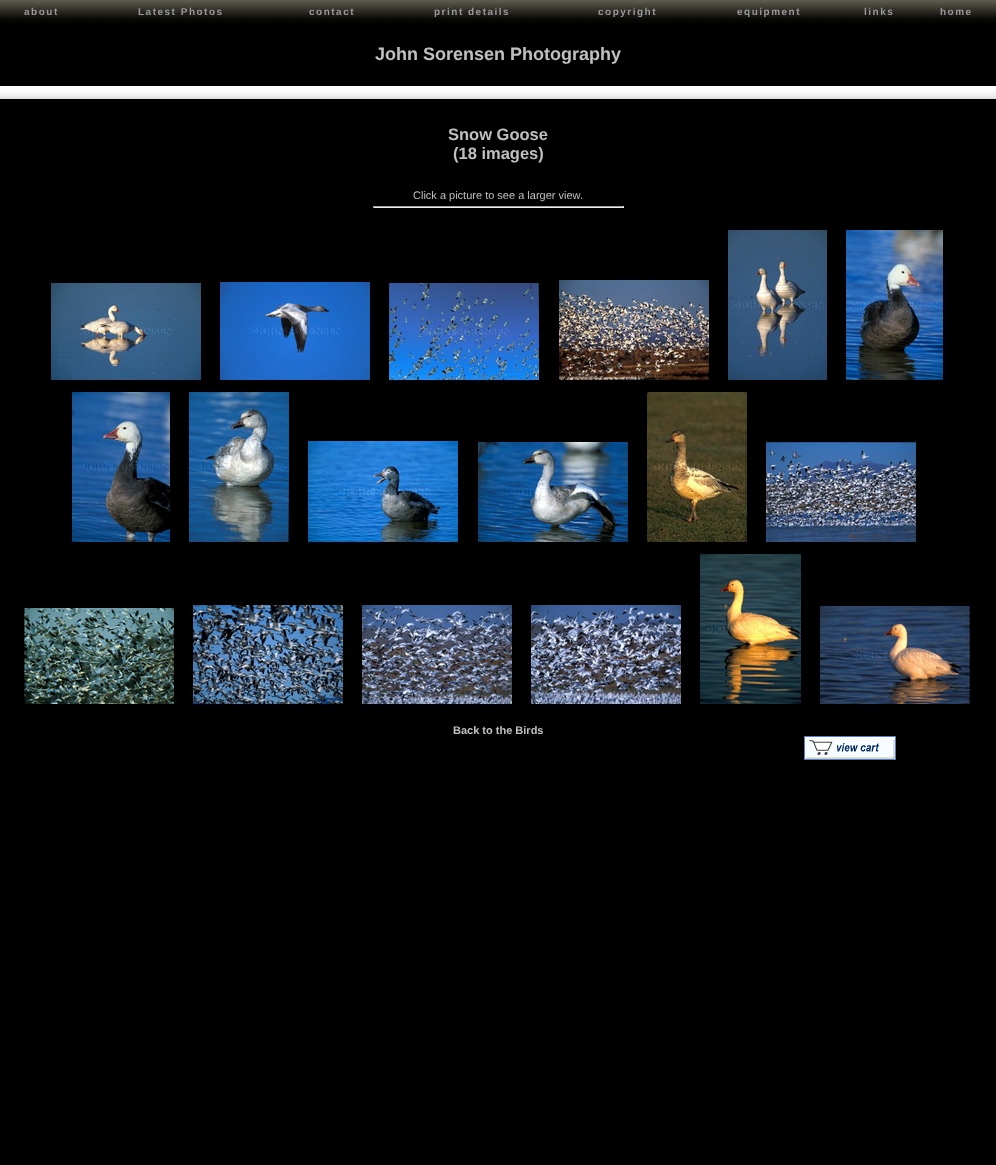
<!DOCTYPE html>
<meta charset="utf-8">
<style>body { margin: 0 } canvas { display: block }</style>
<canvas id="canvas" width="996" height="1165"></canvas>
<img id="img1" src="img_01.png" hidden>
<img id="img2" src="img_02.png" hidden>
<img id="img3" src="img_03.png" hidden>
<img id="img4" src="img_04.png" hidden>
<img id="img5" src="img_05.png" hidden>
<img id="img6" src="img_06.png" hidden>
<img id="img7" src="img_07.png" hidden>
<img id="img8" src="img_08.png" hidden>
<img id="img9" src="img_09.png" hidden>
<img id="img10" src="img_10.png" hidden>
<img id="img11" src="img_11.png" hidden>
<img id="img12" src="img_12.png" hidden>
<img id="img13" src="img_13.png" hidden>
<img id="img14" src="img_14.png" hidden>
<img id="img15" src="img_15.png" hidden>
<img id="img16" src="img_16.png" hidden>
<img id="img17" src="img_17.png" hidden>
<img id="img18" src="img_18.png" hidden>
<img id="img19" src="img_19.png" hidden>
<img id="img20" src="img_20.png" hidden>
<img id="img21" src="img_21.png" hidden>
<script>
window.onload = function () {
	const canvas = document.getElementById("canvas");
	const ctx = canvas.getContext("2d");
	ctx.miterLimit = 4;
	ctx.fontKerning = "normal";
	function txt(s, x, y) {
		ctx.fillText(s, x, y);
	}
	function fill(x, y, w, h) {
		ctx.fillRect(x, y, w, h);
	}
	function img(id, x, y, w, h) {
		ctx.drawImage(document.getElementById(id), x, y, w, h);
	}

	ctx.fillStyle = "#000000";
	fill(0, 0, 996, 1165);
	img("img1", 0, 0, 996, 23);
	img("img2", 0, 86, 996, 13);
	ctx.fillStyle = "#9F9F9F";
	fill(373, 206, 251, 1);
	ctx.fillStyle = "#EEEEEE";
	fill(623, 206, 1, 2);
	fill(373, 207, 251, 1);
	ctx.fillStyle = "#9F9F9F";
	fill(373, 206, 1, 2);
	img("img3", 47, 279, 160, 106);
	img("img4", 216, 278, 160, 108);
	img("img5", 385, 279, 160, 107);
	img("img6", 555, 276, 160, 105);
	img("img7", 724, 226, 105, 160);
	img("img8", 842, 226, 104, 160);
	img("img9", 68, 388, 108, 160);
	img("img10", 185, 388, 107, 160);
	img("img11", 304, 437, 160, 111);
	img("img12", 474, 438, 160, 110);
	img("img13", 643, 388, 106, 160);
	img("img14", 762, 438, 160, 110);
	img("img15", 20, 604, 160, 106);
	img("img16", 189, 601, 160, 109);
	img("img17", 358, 601, 160, 105);
	img("img18", 527, 601, 160, 105);
	img("img19", 696, 550, 111, 160);
	img("img20", 816, 602, 160, 106);
	img("img21", 804, 736, 92, 24);
	ctx.letterSpacing = "1.5px";
	ctx.font = "bold 10px Liberation Sans";
	ctx.fillStyle = "#999999";
	txt("about", 24, 15);
	txt("Latest Photos", 138, 15);
	txt("contact", 309, 15);
	txt("print details", 434, 15);
	txt("copyright", 598, 15);
	txt("equipment", 737, 15);
	txt("links", 864, 15);
	txt("home", 940, 15);
	ctx.letterSpacing = "0px";
	ctx.font = "bold 18px Liberation Sans";
	ctx.fillStyle = "#C0C0C0";
	txt("John Sorensen Photography", 375, 60);
	ctx.font = "bold 16.5px Liberation Sans";
	txt("Snow Goose", 448, 140);
	txt("(18 images)", 453, 159);
	ctx.font = "11px Liberation Sans";
	txt("Click a picture to see a larger view.", 413, 199);
	ctx.font = "bold 11px Liberation Sans";
	txt("Back to the Birds", 453, 734);
};
</script>
